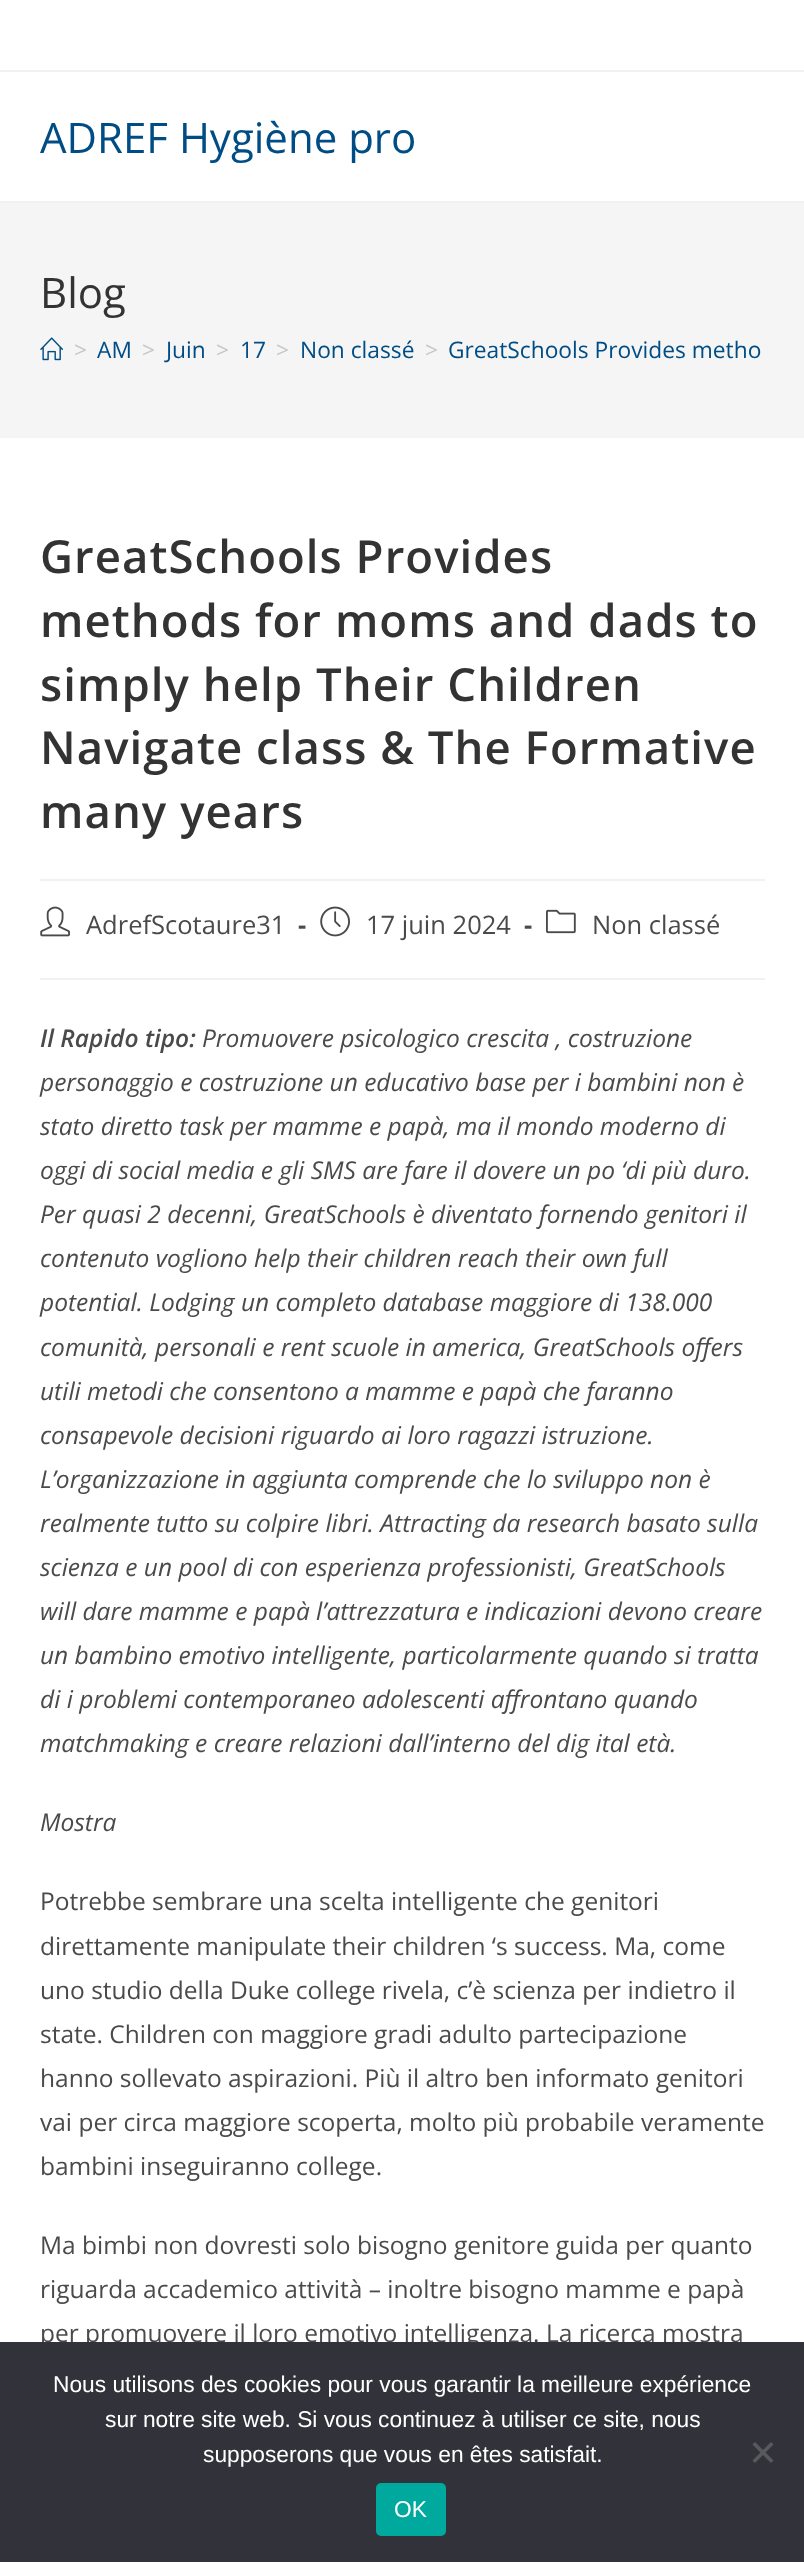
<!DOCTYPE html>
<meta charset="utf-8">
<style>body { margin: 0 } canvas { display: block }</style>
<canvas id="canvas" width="804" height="2562"></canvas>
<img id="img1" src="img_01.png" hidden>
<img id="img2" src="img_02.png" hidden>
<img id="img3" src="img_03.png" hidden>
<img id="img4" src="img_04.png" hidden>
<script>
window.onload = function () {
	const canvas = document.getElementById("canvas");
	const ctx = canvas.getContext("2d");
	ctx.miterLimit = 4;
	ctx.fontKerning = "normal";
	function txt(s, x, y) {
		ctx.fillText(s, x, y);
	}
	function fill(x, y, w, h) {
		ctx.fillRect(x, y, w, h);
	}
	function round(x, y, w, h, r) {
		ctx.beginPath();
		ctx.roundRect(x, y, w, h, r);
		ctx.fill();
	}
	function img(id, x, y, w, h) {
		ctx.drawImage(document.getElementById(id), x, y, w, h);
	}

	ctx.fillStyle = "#FFFFFF";
	fill(0, 0, 804, 2562);
	ctx.fillStyle = "#F1F1F1";
	fill(0, 70, 804, 2);
	fill(0, 201, 804, 2);
	ctx.fillStyle = "#F5F5F5";
	fill(0, 203, 804, 235);
	img("img1", 40, 337, 23, 24);
	ctx.fillStyle = "#F1F1F1";
	fill(40, 879, 725, 2);
	fill(40, 978, 725, 2);
	img("img2", 40, 906, 30, 31);
	img("img3", 320, 906, 30, 31);
	img("img4", 546, 909, 30, 25);
	ctx.font = "42px Open Sans";
	ctx.fillStyle = "#004D85";
	txt("ADREF Hygiène pro", 40, 153);
	ctx.fillStyle = "#333333";
	txt("Blog", 40, 308);
	ctx.font = "22.75px Open Sans";
	ctx.fillStyle = "#C6C6C6";
	txt(">", 74, 358);
	ctx.fillStyle = "#004D85";
	txt("AM", 97, 358);
	ctx.fillStyle = "#C6C6C6";
	txt(">", 142, 358);
	ctx.fillStyle = "#004D85";
	txt("Juin", 166, 358);
	ctx.fillStyle = "#C6C6C6";
	txt(">", 216, 358);
	ctx.fillStyle = "#004D85";
	txt("17", 240, 358);
	ctx.fillStyle = "#C6C6C6";
	txt(">", 276, 358);
	ctx.fillStyle = "#004D85";
	txt("Non classé", 300, 358);
	ctx.fillStyle = "#C6C6C6";
	txt(">", 425, 358);
	ctx.fillStyle = "#004D85";
	txt("GreatSchools Provides metho", 448, 358);
	ctx.letterSpacing = "1.05px";
	ctx.font = "600 45.5px Open Sans";
	ctx.fillStyle = "#333333";
	txt("GreatSchools Provides", 40, 573);
	txt("methods for moms and dads to", 40, 637);
	txt("simply help Their Children", 40, 701);
	txt("Navigate class & The Formative", 40, 764);
	txt("many years", 40, 828);
	ctx.letterSpacing = "0px";
	ctx.font = "25.5px Open Sans";
	ctx.fillStyle = "#4A4A4A";
	txt("AdrefScotaure31", 86, 934);
	ctx.font = "bold 25.5px Open Sans";
	txt("-", 298, 934);
	ctx.font = "25.5px Open Sans";
	txt("17 juin 2024", 366, 934);
	ctx.font = "bold 25.5px Open Sans";
	txt("-", 524, 934);
	ctx.font = "25.5px Open Sans";
	txt("Non classé", 592, 934);
	ctx.font = "italic 600 24.5px Open Sans";
	txt("Il Rapido tipo:", 40, 1047);
	ctx.font = "italic 24.5px Open Sans";
	txt("Promuovere psicologico crescita , costruzione", 202, 1047);
	txt("personaggio e costruzione un educativo base per i bambini non è", 40, 1091);
	txt("stato diretto task per mamme e papà, ma il mondo moderno di", 40, 1135);
	txt("oggi di social media e gli SMS are fare il dovere un po ‘di più duro.", 40, 1179);
	txt("Per quasi 2 decenni, GreatSchools è diventato fornendo genitori il", 40, 1223);
	txt("contenuto vogliono help their children reach their own full", 40, 1267);
	txt("potential. Lodging un completo database maggiore di 138.000", 40, 1311);
	txt("comunità, personali e rent scuole in america, GreatSchools offers", 40, 1356);
	txt("utili metodi che consentono a mamme e papà che faranno", 40, 1400);
	txt("consapevole decisioni riguardo ai loro ragazzi istruzione.", 40, 1444);
	txt("L’organizzazione in aggiunta comprende che lo sviluppo non è", 40, 1488);
	txt("realmente tutto su colpire libri. Attracting da research basato sulla", 40, 1532);
	txt("scienza e un pool di con esperienza professionisti, GreatSchools", 40, 1576);
	txt("will dare mamme e papà l’attrezzatura e indicazioni devono creare", 40, 1620);
	txt("un bambino emotivo intelligente, particolarmente quando si tratta", 40, 1664);
	txt("di i problemi contemporaneo adolescenti affrontano quando", 40, 1708);
	txt("matchmaking e creare relazioni dall’interno del dig ital età.", 40, 1752);
	txt("Mostra", 40, 1831);
	ctx.font = "24.5px Open Sans";
	txt("Potrebbe sembrare una scelta intelligente che genitori", 40, 1910);
	txt("direttamente manipulate their children ‘s success. Ma, come", 40, 1955);
	txt("uno studio della Duke college rivela, c’è scienza per indietro il", 40, 1999);
	txt("state. Children con maggiore gradi adulto partecipazione", 40, 2043);
	txt("hanno sollevato aspirazioni. Più il altro ben informato genitori", 40, 2087);
	txt("vai per circa maggiore scoperta, molto più probabile veramente", 40, 2131);
	txt("bambini inseguiranno college.", 40, 2175);
	txt("Ma bimbi non dovresti solo bisogno genitore guida per quanto", 40, 2254);
	txt("riguarda accademico attività – inoltre bisogno mamme e papà", 40, 2298);
	txt("per promuovere il loro emotivo intelligenza. La ricerca mostra", 40, 2342);
	ctx.fillStyle = "#32323A";
	fill(0, 2342, 804, 220);
	ctx.font = "22.75px Liberation Sans";
	ctx.fillStyle = "#FFFFFF";
	txt("Nous utilisons des cookies pour vous garantir la meilleure expérience", 53, 2392);
	txt("sur notre site web. Si vous continuez à utiliser ce site, nous", 105, 2427);
	txt("supposerons que vous en êtes satisfait.", 203, 2462);
	ctx.fillStyle = "#59595D";
	ctx.beginPath();
	ctx.moveTo(771, 2442);
	ctx.lineTo(773.5, 2444.5);
	ctx.lineTo(755, 2463);
	ctx.lineTo(752.5, 2460.5);
	ctx.closePath();
	ctx.fill();
	ctx.beginPath();
	ctx.moveTo(752.5, 2444.5);
	ctx.lineTo(755, 2442);
	ctx.lineTo(773.5, 2460.5);
	ctx.lineTo(771, 2463);
	ctx.closePath();
	ctx.fill();
	ctx.fillStyle = "#00A99D";
	round(376, 2483, 70, 53, 5);
	ctx.fillStyle = "#FFFFFF";
	txt("OK", 394, 2517);
};
</script>
